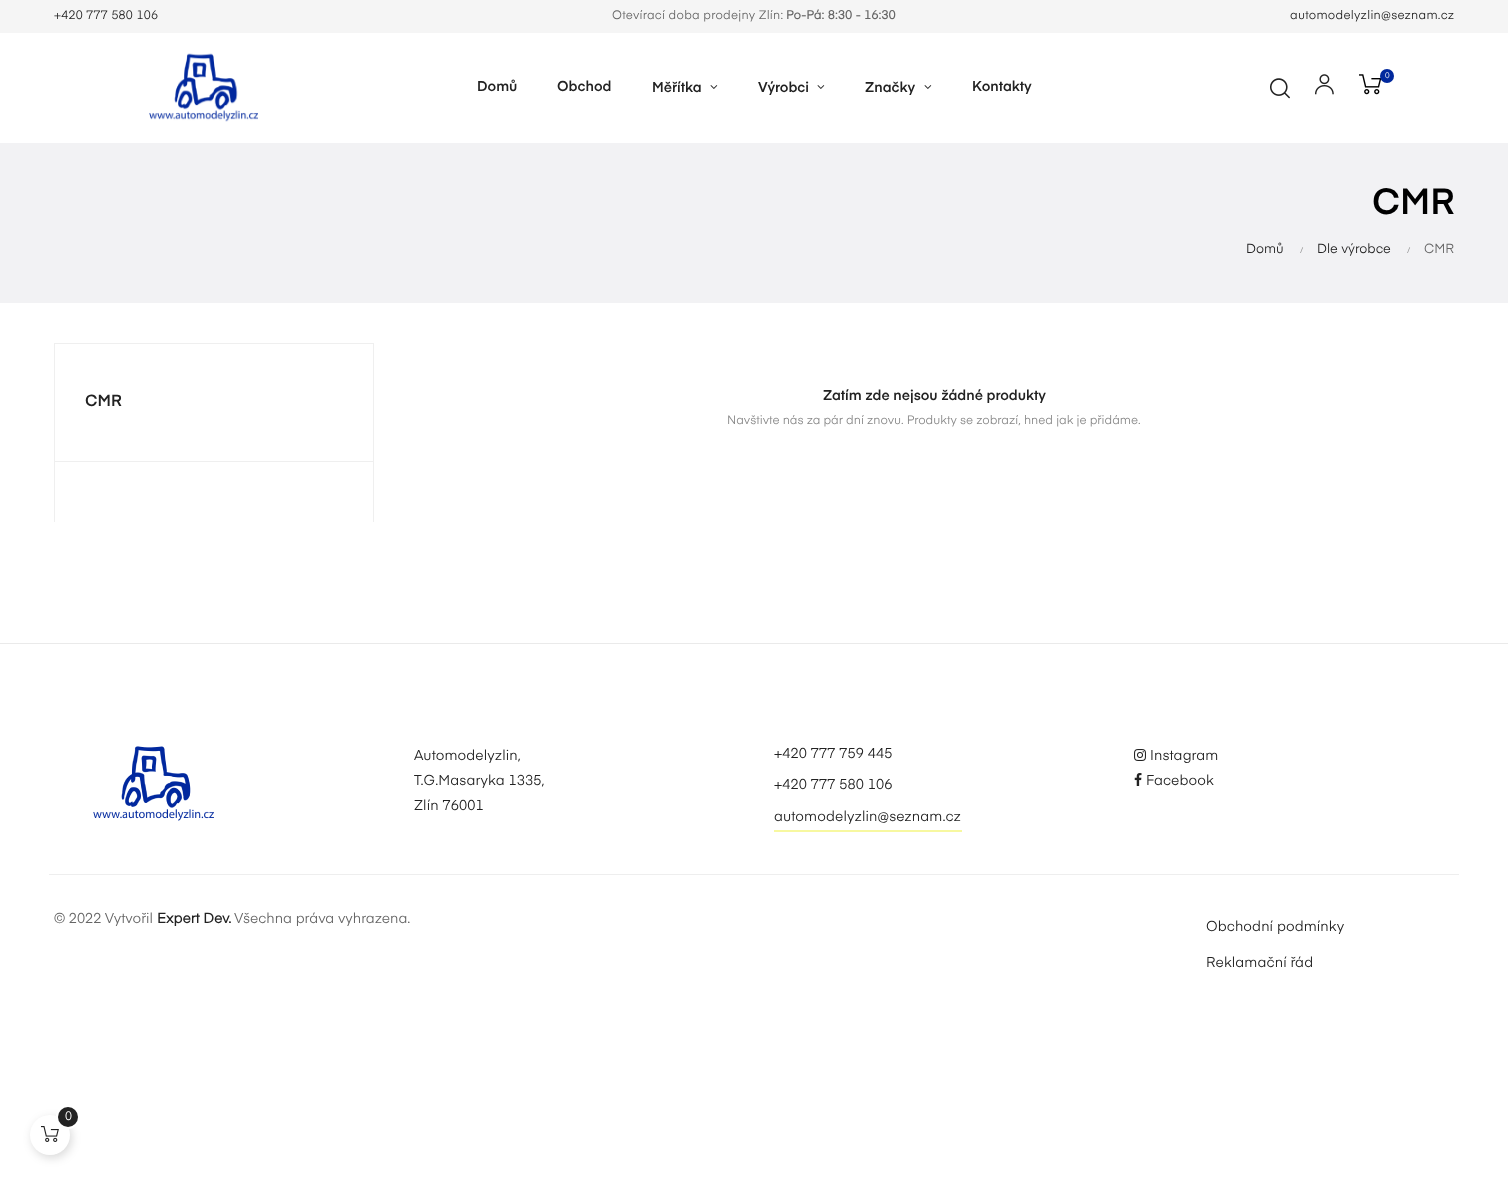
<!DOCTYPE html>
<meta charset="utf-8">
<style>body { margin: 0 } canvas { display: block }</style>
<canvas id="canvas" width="1508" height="1185"></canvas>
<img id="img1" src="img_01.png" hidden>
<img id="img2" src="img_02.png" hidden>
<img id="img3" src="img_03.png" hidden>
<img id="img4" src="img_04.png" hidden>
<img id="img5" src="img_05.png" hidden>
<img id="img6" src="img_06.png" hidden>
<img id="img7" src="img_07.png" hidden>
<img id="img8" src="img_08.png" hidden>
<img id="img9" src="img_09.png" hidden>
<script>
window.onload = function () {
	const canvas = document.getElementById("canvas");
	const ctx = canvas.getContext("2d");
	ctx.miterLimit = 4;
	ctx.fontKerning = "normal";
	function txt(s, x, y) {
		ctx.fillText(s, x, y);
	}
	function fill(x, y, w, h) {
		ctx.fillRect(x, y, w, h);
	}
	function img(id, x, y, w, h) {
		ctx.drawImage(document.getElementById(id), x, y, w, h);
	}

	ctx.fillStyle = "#FFFFFF";
	fill(0, 0, 1508, 1185);
	ctx.fillStyle = "#F5F5F5";
	fill(0, 0, 1508, 33);
	img("img1", 149, 53, 109, 69);
	img("img2", 1270, 78, 20, 21);
	img("img3", 1315, 74, 19, 21);
	img("img4", 1359, 74, 23, 21);
	ctx.fillStyle = "#01289D";
	ctx.beginPath();
	ctx.arc(1387, 76, 7, 0, Math.PI * 2);
	ctx.fill();
	img("img5", 710, 85, 8, 4);
	img("img5", 817, 85, 8, 4);
	img("img5", 924, 85, 8, 4);
	ctx.fillStyle = "#F2F2F4";
	fill(0, 143, 1508, 160);
	ctx.fillStyle = "#EFEFEF";
	fill(54, 343, 320, 1);
	fill(373, 343, 1, 118);
	fill(54, 343, 1, 118);
	fill(54, 461, 320, 1);
	fill(373, 461, 1, 61);
	fill(54, 461, 1, 61);
	ctx.fillStyle = "#EAEAEA";
	fill(0, 643, 1508, 1);
	img("img6", 93, 746, 121, 75);
	ctx.fillStyle = "#F7F8A0";
	fill(774, 830, 188, 2);
	img("img7", 1134, 749, 12, 12);
	img("img8", 1134, 773, 8, 13);
	ctx.fillStyle = "#EEEEEE";
	fill(49, 874, 1410, 1);
	ctx.fillStyle = "rgba(0, 0, 0, 0.15)";
	ctx.filter = "blur(5px)";
	ctx.beginPath();
	ctx.roundRect(32, 1118, 40, 40, 20);
	ctx.fill();
	ctx.filter = "none";
	ctx.fillStyle = "#FFFFFF";
	ctx.beginPath();
	ctx.arc(50, 1135, 20, 0, Math.PI * 2);
	ctx.fill();
	img("img9", 41, 1126, 18, 16);
	ctx.beginPath();
	ctx.arc(68, 1117, 11, 0, Math.PI * 2);
	ctx.strokeStyle = "#FFFFFF";
	ctx.lineWidth = 2;
	ctx.stroke();
	ctx.fillStyle = "#222222";
	ctx.beginPath();
	ctx.arc(68, 1117, 10, 0, Math.PI * 2);
	ctx.fill();
	ctx.letterSpacing = "0.25px";
	ctx.font = "12px 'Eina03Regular'";
	txt("+420 777 580 106", 54, 19);
	ctx.fillStyle = "#666666";
	txt("Otevírací doba prodejny Zlín:", 612, 19);
	ctx.font = "bold 12px 'Eina03Regular'";
	txt("Po-Pá: 8:30 - 16:30", 786, 19);
	ctx.font = "12px 'Eina03Regular'";
	ctx.fillStyle = "#222222";
	txt("automodelyzlin@seznam.cz", 1290, 19);
	ctx.letterSpacing = "0px";
	ctx.font = "8px 'Eina03Regular'";
	ctx.fillStyle = "#FFFFFF";
	txt("0", 1385, 78);
	ctx.font = "600 14px 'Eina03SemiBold'";
	ctx.fillStyle = "#222222";
	txt("Domů", 477, 91);
	txt("Obchod", 557, 91);
	txt("Měřítka", 652, 92);
	txt("Výrobci", 758, 92);
	txt("Značky", 865, 92);
	txt("Kontakty", 972, 91);
	ctx.font = "600 36px 'Eina03SemiBold'";
	ctx.fillStyle = "#000000";
	txt("CMR", 1372, 214);
	ctx.font = "13px 'Eina03Regular'";
	ctx.fillStyle = "#222222";
	txt("Domů", 1246, 253);
	ctx.font = "8px 'Eina03Regular'";
	ctx.fillStyle = "#888888";
	txt("/", 1300, 253);
	ctx.font = "13px 'Eina03Regular'";
	ctx.fillStyle = "#222222";
	txt("Dle výrobce", 1317, 253);
	ctx.font = "8px 'Eina03Regular'";
	ctx.fillStyle = "#888888";
	txt("/", 1407, 253);
	ctx.font = "13px 'Eina03Regular'";
	ctx.fillStyle = "#666666";
	txt("CMR", 1424, 253);
	ctx.font = "600 16px 'Eina03SemiBold'";
	ctx.fillStyle = "#222222";
	txt("CMR", 85, 406);
	ctx.font = "600 14px 'Eina03SemiBold'";
	txt("Zatím zde nejsou žádné produkty", 823, 400);
	ctx.font = "12px 'Eina03Regular'";
	ctx.fillStyle = "#888888";
	txt("Navštivte nás za pár dní znovu. Produkty se zobrazí, hned jak je přidáme.", 727, 424);
	ctx.letterSpacing = "0.1px";
	ctx.font = "14px 'Eina03Regular'";
	ctx.fillStyle = "#222222";
	txt("Automodelyzlin,", 414, 760);
	txt("T.G.Masaryka 1335,", 414, 785);
	txt("Zlín 76001", 414, 810);
	txt("+420 777 759 445", 774, 758);
	txt("+420 777 580 106", 774, 789);
	txt("automodelyzlin@seznam.cz", 774, 821);
	txt("Instagram", 1150, 760);
	txt("Facebook", 1146, 785);
	ctx.letterSpacing = "0px";
	ctx.fillStyle = "#666666";
	txt("© 2022 Vytvořil", 54, 923);
	ctx.font = "bold 14px 'Eina03Regular'";
	ctx.fillStyle = "#222222";
	txt("Expert Dev.", 157, 923);
	ctx.font = "14px 'Eina03Regular'";
	ctx.fillStyle = "#666666";
	txt("Všechna práva vyhrazena.", 234, 923);
	ctx.letterSpacing = "0.1px";
	ctx.fillStyle = "#222222";
	txt("Obchodní podmínky", 1206, 931);
	txt("Reklamační řád", 1206, 967);
	ctx.letterSpacing = "0px";
	ctx.font = "12px 'Eina03Regular'";
	ctx.fillStyle = "#FFFFFF";
	txt("0", 65, 1120);
};
</script>
